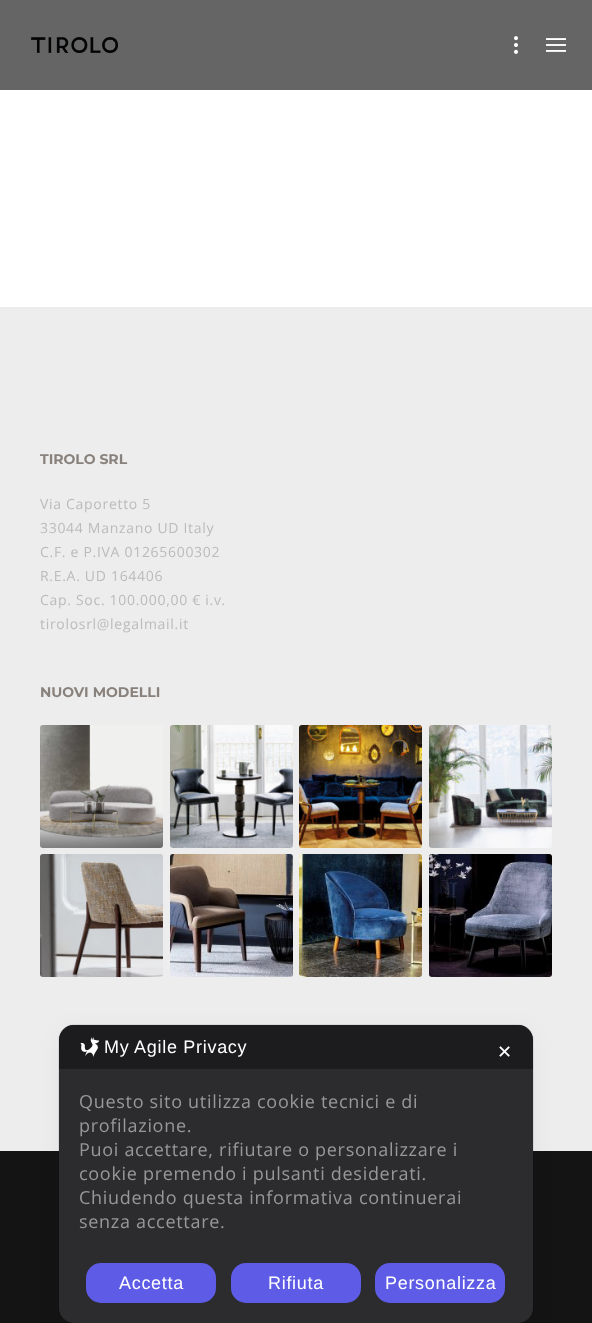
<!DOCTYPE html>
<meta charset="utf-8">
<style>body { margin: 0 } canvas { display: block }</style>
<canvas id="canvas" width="592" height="1323"></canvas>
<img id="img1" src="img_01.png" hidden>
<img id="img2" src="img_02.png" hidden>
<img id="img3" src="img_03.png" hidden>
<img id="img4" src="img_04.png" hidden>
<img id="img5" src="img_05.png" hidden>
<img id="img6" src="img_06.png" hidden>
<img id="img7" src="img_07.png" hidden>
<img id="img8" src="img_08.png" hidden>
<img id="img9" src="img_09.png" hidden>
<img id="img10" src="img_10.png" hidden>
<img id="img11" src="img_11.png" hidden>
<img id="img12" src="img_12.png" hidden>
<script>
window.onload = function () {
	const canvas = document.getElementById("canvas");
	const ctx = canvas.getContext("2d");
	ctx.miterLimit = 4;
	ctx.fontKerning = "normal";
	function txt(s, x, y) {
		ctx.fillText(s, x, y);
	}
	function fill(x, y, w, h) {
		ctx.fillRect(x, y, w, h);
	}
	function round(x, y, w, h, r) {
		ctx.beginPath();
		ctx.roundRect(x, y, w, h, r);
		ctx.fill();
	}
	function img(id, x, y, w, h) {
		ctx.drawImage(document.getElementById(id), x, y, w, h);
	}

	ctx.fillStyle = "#FFFFFF";
	fill(0, 0, 592, 1323);
	ctx.fillStyle = "#656565";
	fill(0, 0, 592, 90);
	img("img1", 31, 37, 87, 16);
	img("img2", 514, 36, 4, 18);
	img("img3", 546, 38, 20, 14);
	ctx.fillStyle = "#EDEDED";
	fill(0, 307, 592, 844);
	img("img4", 40, 725, 123, 123);
	img("img5", 170, 725, 123, 123);
	img("img6", 299, 725, 123, 123);
	img("img7", 429, 725, 123, 123);
	img("img8", 40, 854, 123, 123);
	img("img9", 170, 854, 123, 123);
	img("img10", 299, 854, 123, 123);
	img("img11", 429, 854, 123, 123);
	ctx.fillStyle = "#141414";
	fill(0, 1151, 592, 172);
	ctx.beginPath();
	ctx.roundRect(58.5, 1024.5, 475, 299, 15.5);
	ctx.strokeStyle = "rgba(0, 0, 0, 0.08)";
	ctx.stroke();
	ctx.fillStyle = "rgba(0, 0, 0, 0.05)";
	ctx.filter = "blur(12px)";
	ctx.beginPath();
	ctx.roundRect(59, 1031, 474, 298, 15);
	ctx.fill();
	ctx.filter = "none";
	ctx.fillStyle = "#2C2C2E";
	round(59, 1025, 474, 298, 15);
	ctx.fillStyle = "#1C1C1E";
	ctx.beginPath();
	ctx.roundRect(59, 1025, 474, 44, [15, 15, 0, 0]);
	ctx.fill();
	img("img12", 80, 1037, 19, 20);
	ctx.fillStyle = "#5E5CE6";
	round(86, 1263, 130, 40, 15);
	round(231, 1263, 130, 40, 15);
	round(375, 1263, 130, 40, 15);
	ctx.font = "100 14px Montserrat";
	ctx.fillStyle = "#89827C";
	txt("TIROLO SRL", 40, 464);
	ctx.letterSpacing = "0.7px";
	ctx.font = "14px Open Sans";
	ctx.fillStyle = "#BBBBBB";
	txt("Via Caporetto 5", 40, 509);
	txt("33044 Manzano UD Italy", 40, 533);
	txt("C.F. e P.IVA 01265600302", 40, 557);
	txt("R.E.A. UD 164406", 40, 581);
	txt("Cap. Soc. 100.000,00 € i.v.", 40, 605);
	txt("tirolosrl@legalmail.it", 40, 629);
	ctx.letterSpacing = "0px";
	ctx.font = "100 14px Montserrat";
	ctx.fillStyle = "#89827C";
	txt("NUOVI MODELLI", 40, 697);
	ctx.letterSpacing = "0.7px";
	ctx.font = "18px Liberation Sans";
	ctx.fillStyle = "#FFFFFF";
	txt("My Agile Privacy", 104, 1053);
	ctx.font = "18px DejaVu Sans";
	txt("✕", 497, 1058);
	ctx.font = "18px Open Sans";
	ctx.fillStyle = "#989899";
	txt("Questo sito utilizza cookie tecnici e di", 79, 1108);
	txt("profilazione.", 79, 1132);
	txt("Puoi accettare, rifiutare o personalizzare i", 79, 1156);
	txt("cookie premendo i pulsanti desiderati.", 79, 1180);
	txt("Chiudendo questa informativa continuerai", 79, 1204);
	txt("senza accettare.", 79, 1228);
	ctx.font = "18px Liberation Sans";
	ctx.fillStyle = "#FFFFFF";
	txt("Accetta", 119, 1289);
	txt("Rifiuta", 268, 1289);
	txt("Personalizza", 385, 1289);
};
</script>
